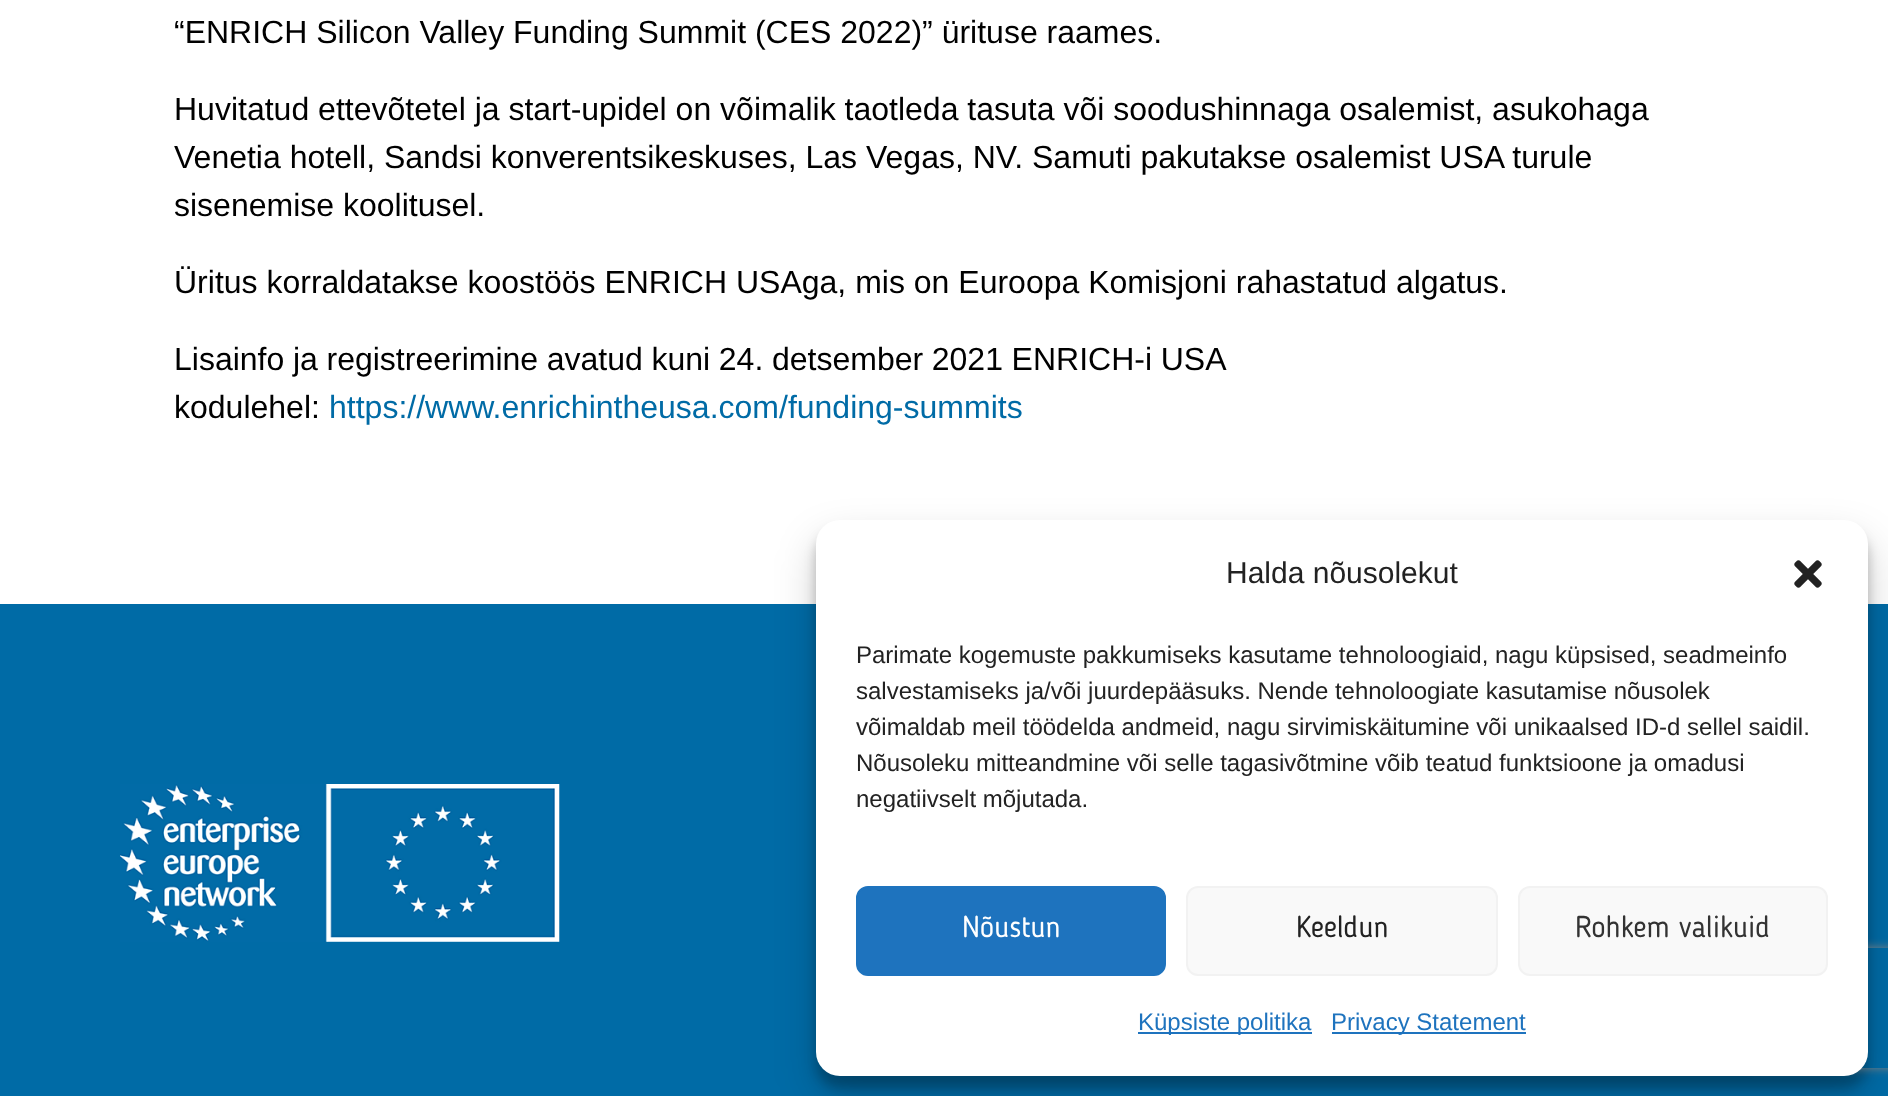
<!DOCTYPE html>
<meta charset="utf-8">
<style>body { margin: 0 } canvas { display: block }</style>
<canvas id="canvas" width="1888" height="1096"></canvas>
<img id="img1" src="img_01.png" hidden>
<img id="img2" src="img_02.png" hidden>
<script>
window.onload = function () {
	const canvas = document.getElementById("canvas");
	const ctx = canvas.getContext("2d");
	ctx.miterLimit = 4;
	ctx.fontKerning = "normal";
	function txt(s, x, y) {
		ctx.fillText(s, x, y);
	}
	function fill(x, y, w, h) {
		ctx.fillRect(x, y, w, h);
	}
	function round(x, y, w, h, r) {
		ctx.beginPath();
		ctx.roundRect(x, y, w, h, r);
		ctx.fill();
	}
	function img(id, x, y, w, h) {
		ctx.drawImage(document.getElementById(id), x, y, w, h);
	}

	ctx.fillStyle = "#FFFFFF";
	fill(0, 0, 1888, 1096);
	ctx.fillStyle = "#006BA6";
	fill(0, 604, 1888, 492);
	ctx.fillStyle = "rgba(0, 0, 0, 0.23)";
	ctx.filter = "blur(6px)";
	ctx.beginPath();
	ctx.roundRect(816, 532, 1052, 556, 24);
	ctx.fill();
	ctx.filter = "none";
	ctx.fillStyle = "rgba(0, 0, 0, 0.19)";
	ctx.filter = "blur(20px)";
	ctx.beginPath();
	ctx.roundRect(816, 540, 1052, 556, 24);
	ctx.fill();
	ctx.filter = "none";
	ctx.save();
	ctx.beginPath();
	ctx.moveTo(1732, 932);
	ctx.lineTo(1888, 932);
	ctx.lineTo(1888, 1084);
	ctx.lineTo(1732, 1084);
	ctx.closePath();
	ctx.moveTo(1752, 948);
	ctx.lineTo(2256, 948);
	ctx.bezierCurveTo(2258, 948, 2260, 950, 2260, 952);
	ctx.lineTo(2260, 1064);
	ctx.bezierCurveTo(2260, 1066, 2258, 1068, 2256, 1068);
	ctx.lineTo(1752, 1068);
	ctx.bezierCurveTo(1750, 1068, 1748, 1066, 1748, 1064);
	ctx.lineTo(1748, 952);
	ctx.bezierCurveTo(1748, 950, 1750, 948, 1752, 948);
	ctx.closePath();
	ctx.clip("evenodd");
	ctx.fillStyle = "#808080";
	ctx.filter = "blur(5px)";
	ctx.beginPath();
	ctx.roundRect(1748, 948, 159, 120, 4);
	ctx.fill();
	ctx.filter = "none";
	ctx.restore();
	ctx.fillStyle = "#FFFFFF";
	round(816, 520, 1052, 556, 24);
	img("img1", 1794, 560, 28, 28);
	ctx.fillStyle = "#1E73BE";
	ctx.beginPath();
	ctx.roundRect(857, 887, 308, 88, 11);
	ctx.fill();
	ctx.strokeStyle = "#1E73BE";
	ctx.lineWidth = 2;
	ctx.stroke();
	ctx.fillStyle = "#F9F9F9";
	ctx.beginPath();
	ctx.roundRect(1187, 887, 310, 88, 11);
	ctx.fill();
	ctx.strokeStyle = "#F2F2F2";
	ctx.stroke();
	ctx.beginPath();
	ctx.roundRect(1519, 887, 308, 88, 11);
	ctx.fill();
	ctx.stroke();
	ctx.fillStyle = "#1E73BE";
	fill(1138, 1032, 174, 2);
	fill(1332, 1032, 194, 2);
	img("img2", 120, 784, 440, 158);
	ctx.font = "32px Liberation Sans";
	ctx.fillStyle = "#000000";
	txt("“ENRICH Silicon Valley Funding Summit (CES 2022)” ürituse raames.", 174, 43);
	txt("Huvitatud ettevõtetel ja start-upidel on võimalik taotleda tasuta või soodushinnaga osalemist, asukohaga", 174, 120);
	txt("Venetia hotell, Sandsi konverentsikeskuses, Las Vegas, NV. Samuti pakutakse osalemist USA turule", 174, 168);
	txt("sisenemise koolitusel.", 174, 216);
	txt("Üritus korraldatakse koostöös ENRICH USAga, mis on Euroopa Komisjoni rahastatud algatus.", 174, 293);
	ctx.wordSpacing = "-0.25px";
	txt("Lisainfo ja registreerimine avatud kuni 24. detsember 2021 ENRICH-i USA", 174, 370);
	ctx.wordSpacing = "0px";
	txt("kodulehel:", 174, 418);
	ctx.fillStyle = "#006BA6";
	txt("https://www.enrichintheusa.com/funding-summits", 329, 418);
	ctx.font = "30px Liberation Sans";
	ctx.fillStyle = "#222222";
	txt("Halda nõusolekut", 1226, 583);
	ctx.font = "24px Liberation Sans";
	txt("Parimate kogemuste pakkumiseks kasutame tehnoloogiaid, nagu küpsised, seadmeinfo", 856, 663);
	txt("salvestamiseks ja/või juurdepääsuks. Nende tehnoloogiate kasutamise nõusolek", 856, 699);
	txt("võimaldab meil töödelda andmeid, nagu sirvimiskäitumine või unikaalsed ID-d sellel saidil.", 856, 735);
	txt("Nõusoleku mitteandmine või selle tagasivõtmine võib teatud funktsioone ja omadusi", 856, 771);
	txt("negatiivselt mõjutada.", 856, 807);
	ctx.font = "30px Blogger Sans";
	ctx.fillStyle = "#FFFFFF";
	txt("Nõustun", 962, 937);
	ctx.fillStyle = "#222222";
	txt("Keeldun", 1296, 937);
	ctx.fillStyle = "#333333";
	txt("Rohkem valikuid", 1575, 937);
	ctx.font = "24px Liberation Sans";
	ctx.fillStyle = "#1E73BE";
	txt("Küpsiste politika", 1138, 1030);
	txt("Privacy Statement", 1331, 1030);
};
</script>
